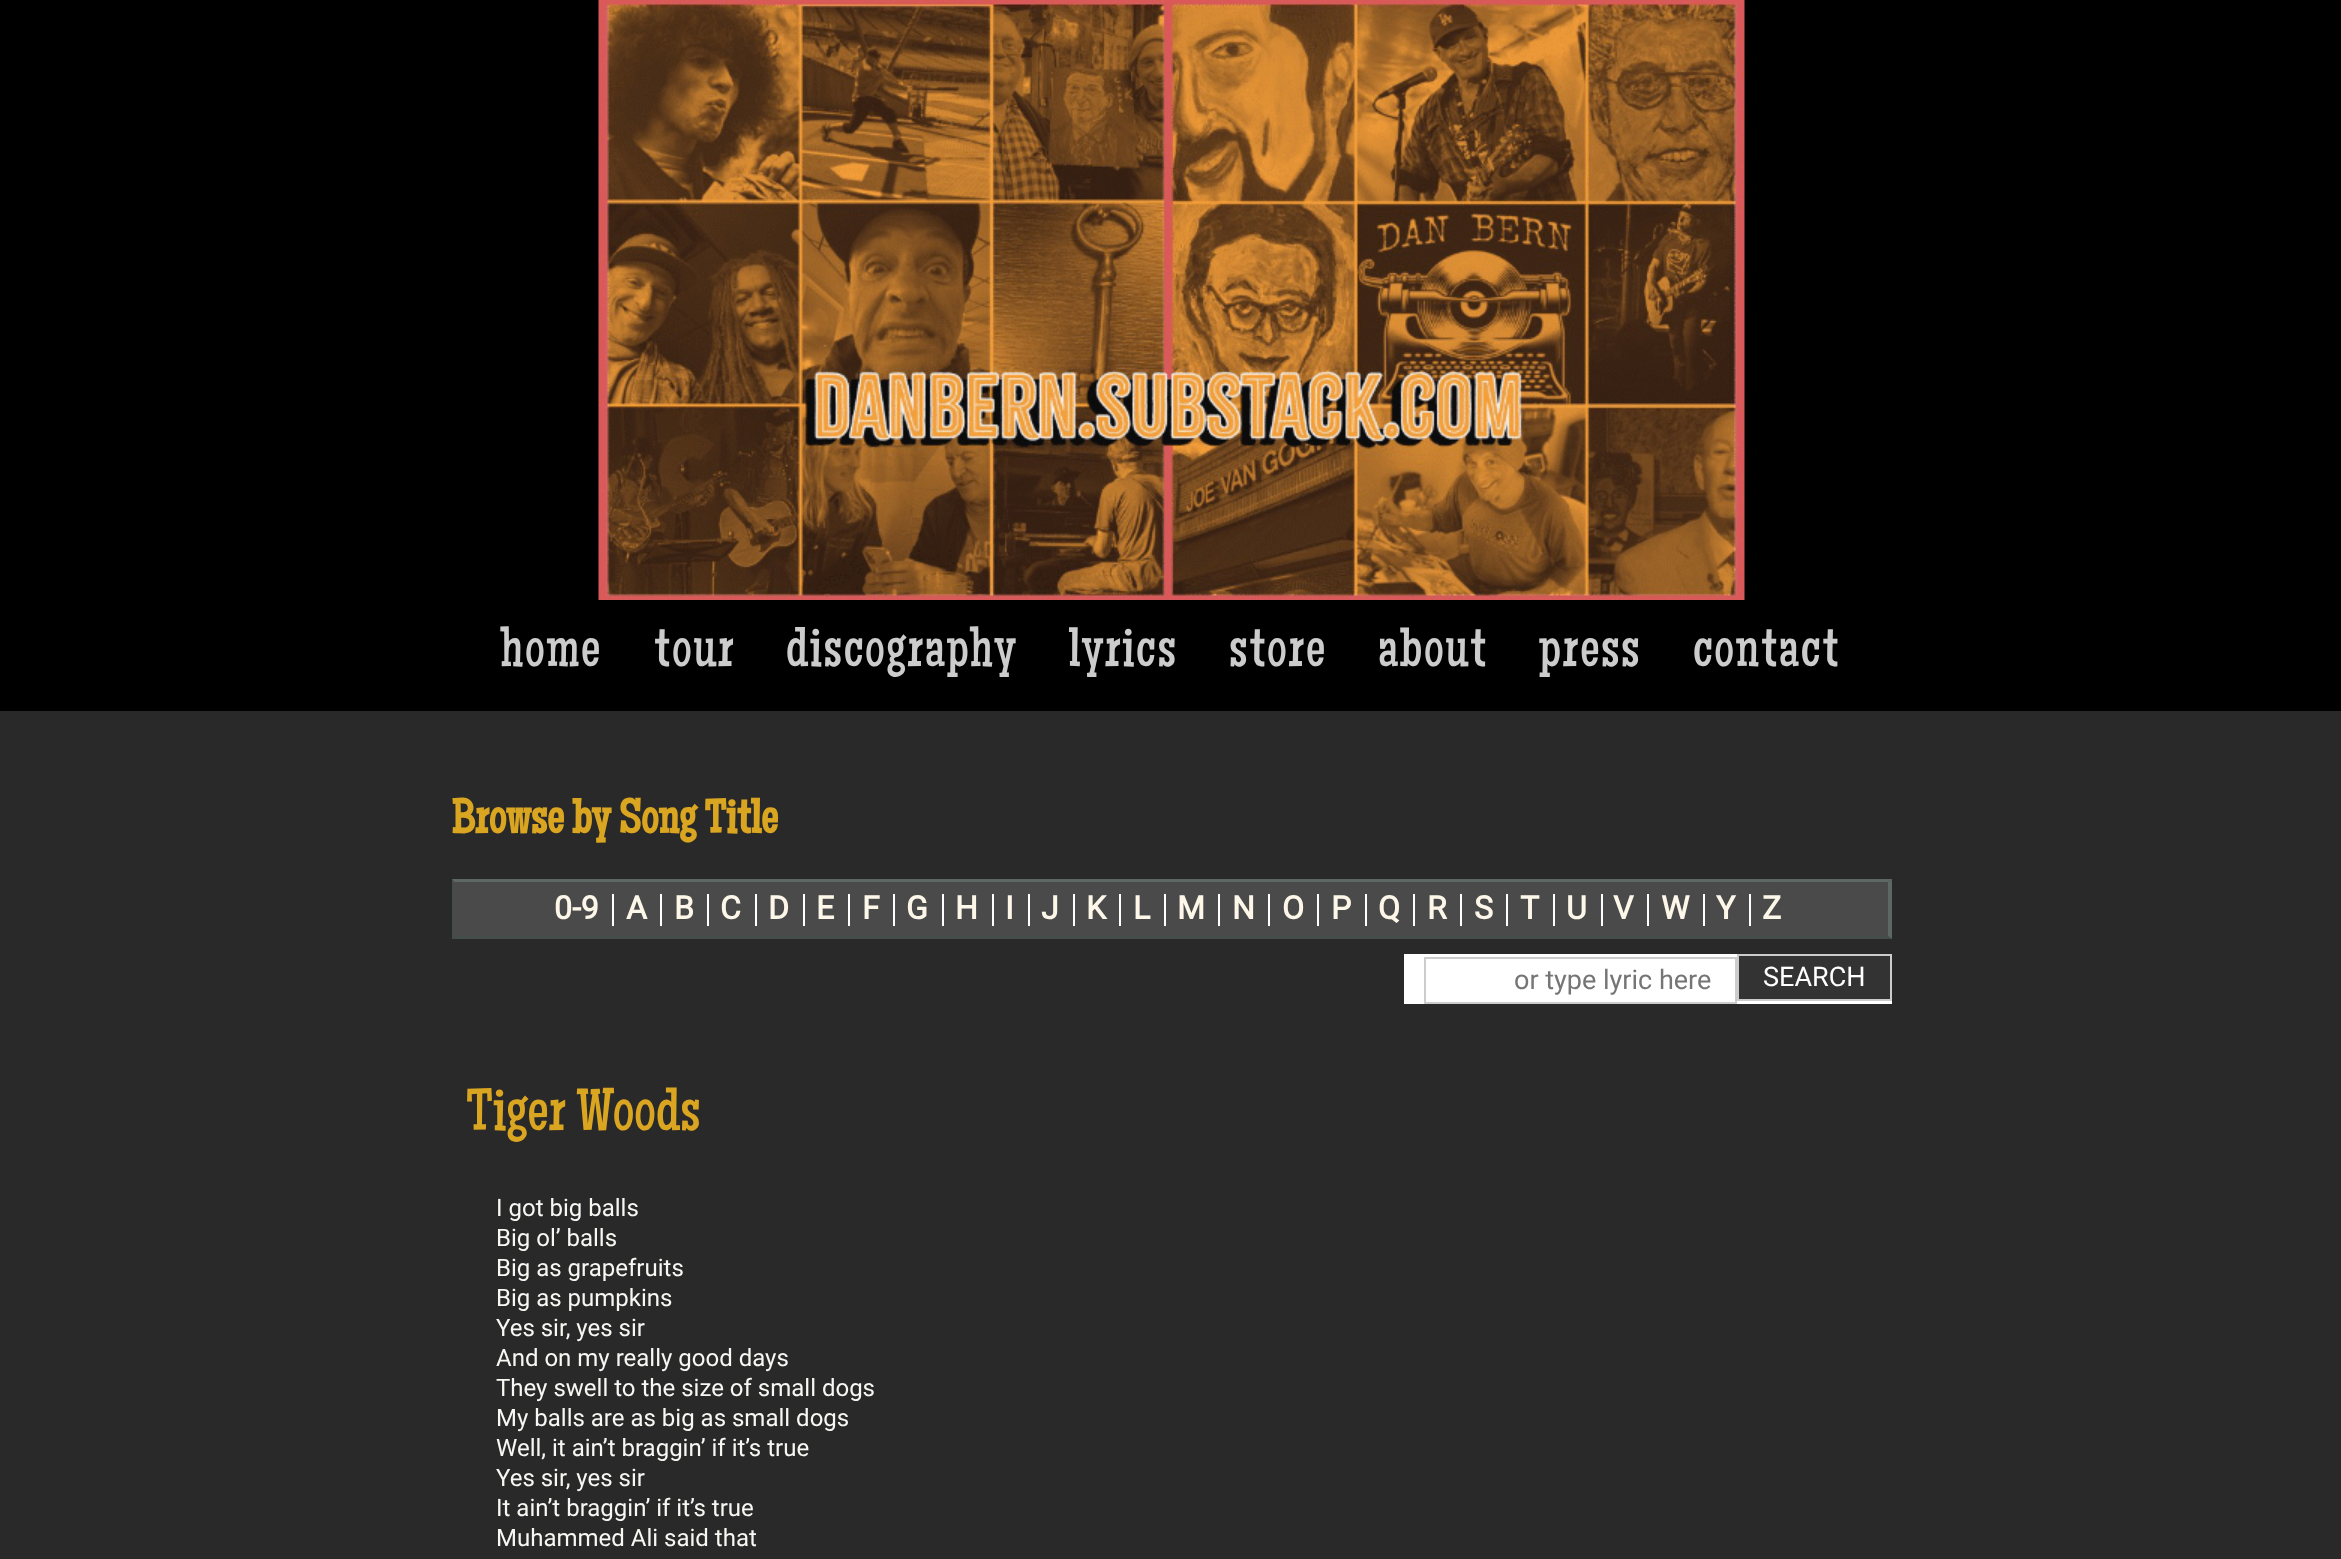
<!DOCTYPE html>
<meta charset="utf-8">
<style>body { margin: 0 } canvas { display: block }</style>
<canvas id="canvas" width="2341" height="1559"></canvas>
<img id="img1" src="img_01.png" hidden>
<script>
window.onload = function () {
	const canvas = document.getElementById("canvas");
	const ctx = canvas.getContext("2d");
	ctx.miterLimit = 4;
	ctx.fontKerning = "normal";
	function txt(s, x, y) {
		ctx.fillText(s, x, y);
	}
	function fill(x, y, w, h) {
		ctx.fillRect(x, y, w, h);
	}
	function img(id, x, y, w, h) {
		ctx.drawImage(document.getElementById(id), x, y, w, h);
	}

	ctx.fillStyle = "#292929";
	fill(0, 0, 2341, 1559);
	ctx.fillStyle = "#000000";
	fill(0, 0, 2341, 711);
	img("img1", 598, 0, 1147, 600);
	ctx.fillStyle = "#4A4A4A";
	fill(452, 879, 1440, 60);
	ctx.fillStyle = "#5D6764";
	ctx.beginPath();
	ctx.moveTo(452, 879);
	ctx.lineTo(1892, 879);
	ctx.lineTo(1888, 882);
	ctx.lineTo(454, 882);
	ctx.closePath();
	ctx.fill();
	ctx.beginPath();
	ctx.moveTo(1892, 879);
	ctx.lineTo(1892, 939);
	ctx.lineTo(1888, 936);
	ctx.lineTo(1888, 882);
	ctx.closePath();
	ctx.fill();
	ctx.fillStyle = "#454D4A";
	ctx.beginPath();
	ctx.moveTo(1892, 939);
	ctx.lineTo(452, 939);
	ctx.lineTo(454, 936);
	ctx.lineTo(1888, 936);
	ctx.closePath();
	ctx.fill();
	ctx.beginPath();
	ctx.moveTo(452, 939);
	ctx.lineTo(452, 879);
	ctx.lineTo(454, 882);
	ctx.lineTo(454, 936);
	ctx.closePath();
	ctx.fill();
	ctx.fillStyle = "#FFFFFF";
	fill(612, 894, 2, 32);
	fill(660, 894, 2, 32);
	fill(707, 894, 2, 32);
	fill(755, 894, 2, 32);
	fill(803, 894, 2, 32);
	fill(848, 894, 2, 32);
	fill(893, 894, 2, 32);
	fill(942, 894, 2, 32);
	fill(992, 894, 2, 32);
	fill(1028, 894, 2, 32);
	fill(1073, 894, 2, 32);
	fill(1119, 894, 2, 32);
	fill(1164, 894, 2, 32);
	fill(1218, 894, 2, 32);
	fill(1268, 894, 2, 32);
	fill(1317, 894, 2, 32);
	fill(1365, 894, 2, 32);
	fill(1413, 894, 2, 32);
	fill(1460, 894, 2, 32);
	fill(1506, 894, 2, 32);
	fill(1553, 894, 2, 32);
	fill(1601, 894, 2, 32);
	fill(1647, 894, 2, 32);
	fill(1703, 894, 2, 32);
	fill(1749, 894, 2, 32);
	fill(1404, 954, 488, 50);
	ctx.strokeStyle = "#CCCCCC";
	ctx.lineWidth = 2;
	ctx.strokeRect(1425, 958, 311, 45);
	ctx.fillStyle = "#333333";
	ctx.beginPath();
	ctx.rect(1738, 955, 153, 45);
	ctx.fill();
	ctx.stroke();
	ctx.letterSpacing = "1.5px";
	ctx.font = "55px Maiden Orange";
	ctx.fillStyle = "#CCCCCC";
	txt("home", 501, 666);
	txt("tour", 654, 666);
	txt("discography", 786, 666);
	txt("lyrics", 1069, 666);
	txt("store", 1229, 666);
	txt("about", 1378, 666);
	txt("press", 1539, 666);
	txt("contact", 1693, 666);
	ctx.letterSpacing = "0px";
	ctx.font = "bold 48px Maiden Orange";
	ctx.fillStyle = "#DAA520";
	txt("Browse by Song Title", 451, 833);
	ctx.font = "bold 32px Roboto";
	ctx.fillStyle = "#FDF7E9";
	txt("0-9", 554, 919);
	txt("A", 626, 919);
	txt("B", 674, 919);
	txt("C", 720, 919);
	txt("D", 768, 919);
	txt("E", 816, 919);
	txt("F", 862, 919);
	txt("G", 906, 919);
	txt("H", 955, 919);
	txt("I", 1005, 919);
	txt("J", 1041, 919);
	txt("K", 1086, 919);
	txt("L", 1133, 919);
	txt("M", 1177, 919);
	txt("N", 1232, 919);
	txt("O", 1282, 919);
	txt("P", 1331, 919);
	txt("Q", 1378, 919);
	txt("R", 1427, 919);
	txt("S", 1474, 919);
	txt("T", 1520, 919);
	txt("U", 1566, 919);
	txt("V", 1613, 919);
	txt("W", 1661, 919);
	txt("Y", 1716, 919);
	txt("Z", 1762, 919);
	ctx.font = "27px Roboto";
	ctx.fillStyle = "#757575";
	txt("or type lyric here", 1514, 989);
	ctx.fillStyle = "#FFFFFF";
	txt("SEARCH", 1763, 986);
	ctx.font = "60px Maiden Orange";
	ctx.fillStyle = "#DAA520";
	txt("Tiger Woods", 466, 1130);
	ctx.font = "24px Roboto";
	ctx.fillStyle = "#F7F7F3";
	txt("I got big balls", 496, 1216);
	txt("Big ol’ balls", 496, 1246);
	txt("Big as grapefruits", 496, 1276);
	txt("Big as pumpkins", 496, 1306);
	txt("Yes sir, yes sir", 496, 1336);
	txt("And on my really good days", 496, 1366);
	txt("They swell to the size of small dogs", 496, 1396);
	txt("My balls are as big as small dogs", 496, 1426);
	txt("Well, it ain’t braggin’ if it’s true", 496, 1456);
	txt("Yes sir, yes sir", 496, 1486);
	txt("It ain’t braggin’ if it’s true", 496, 1516);
	txt("Muhammed Ali said that", 496, 1546);
};
</script>
